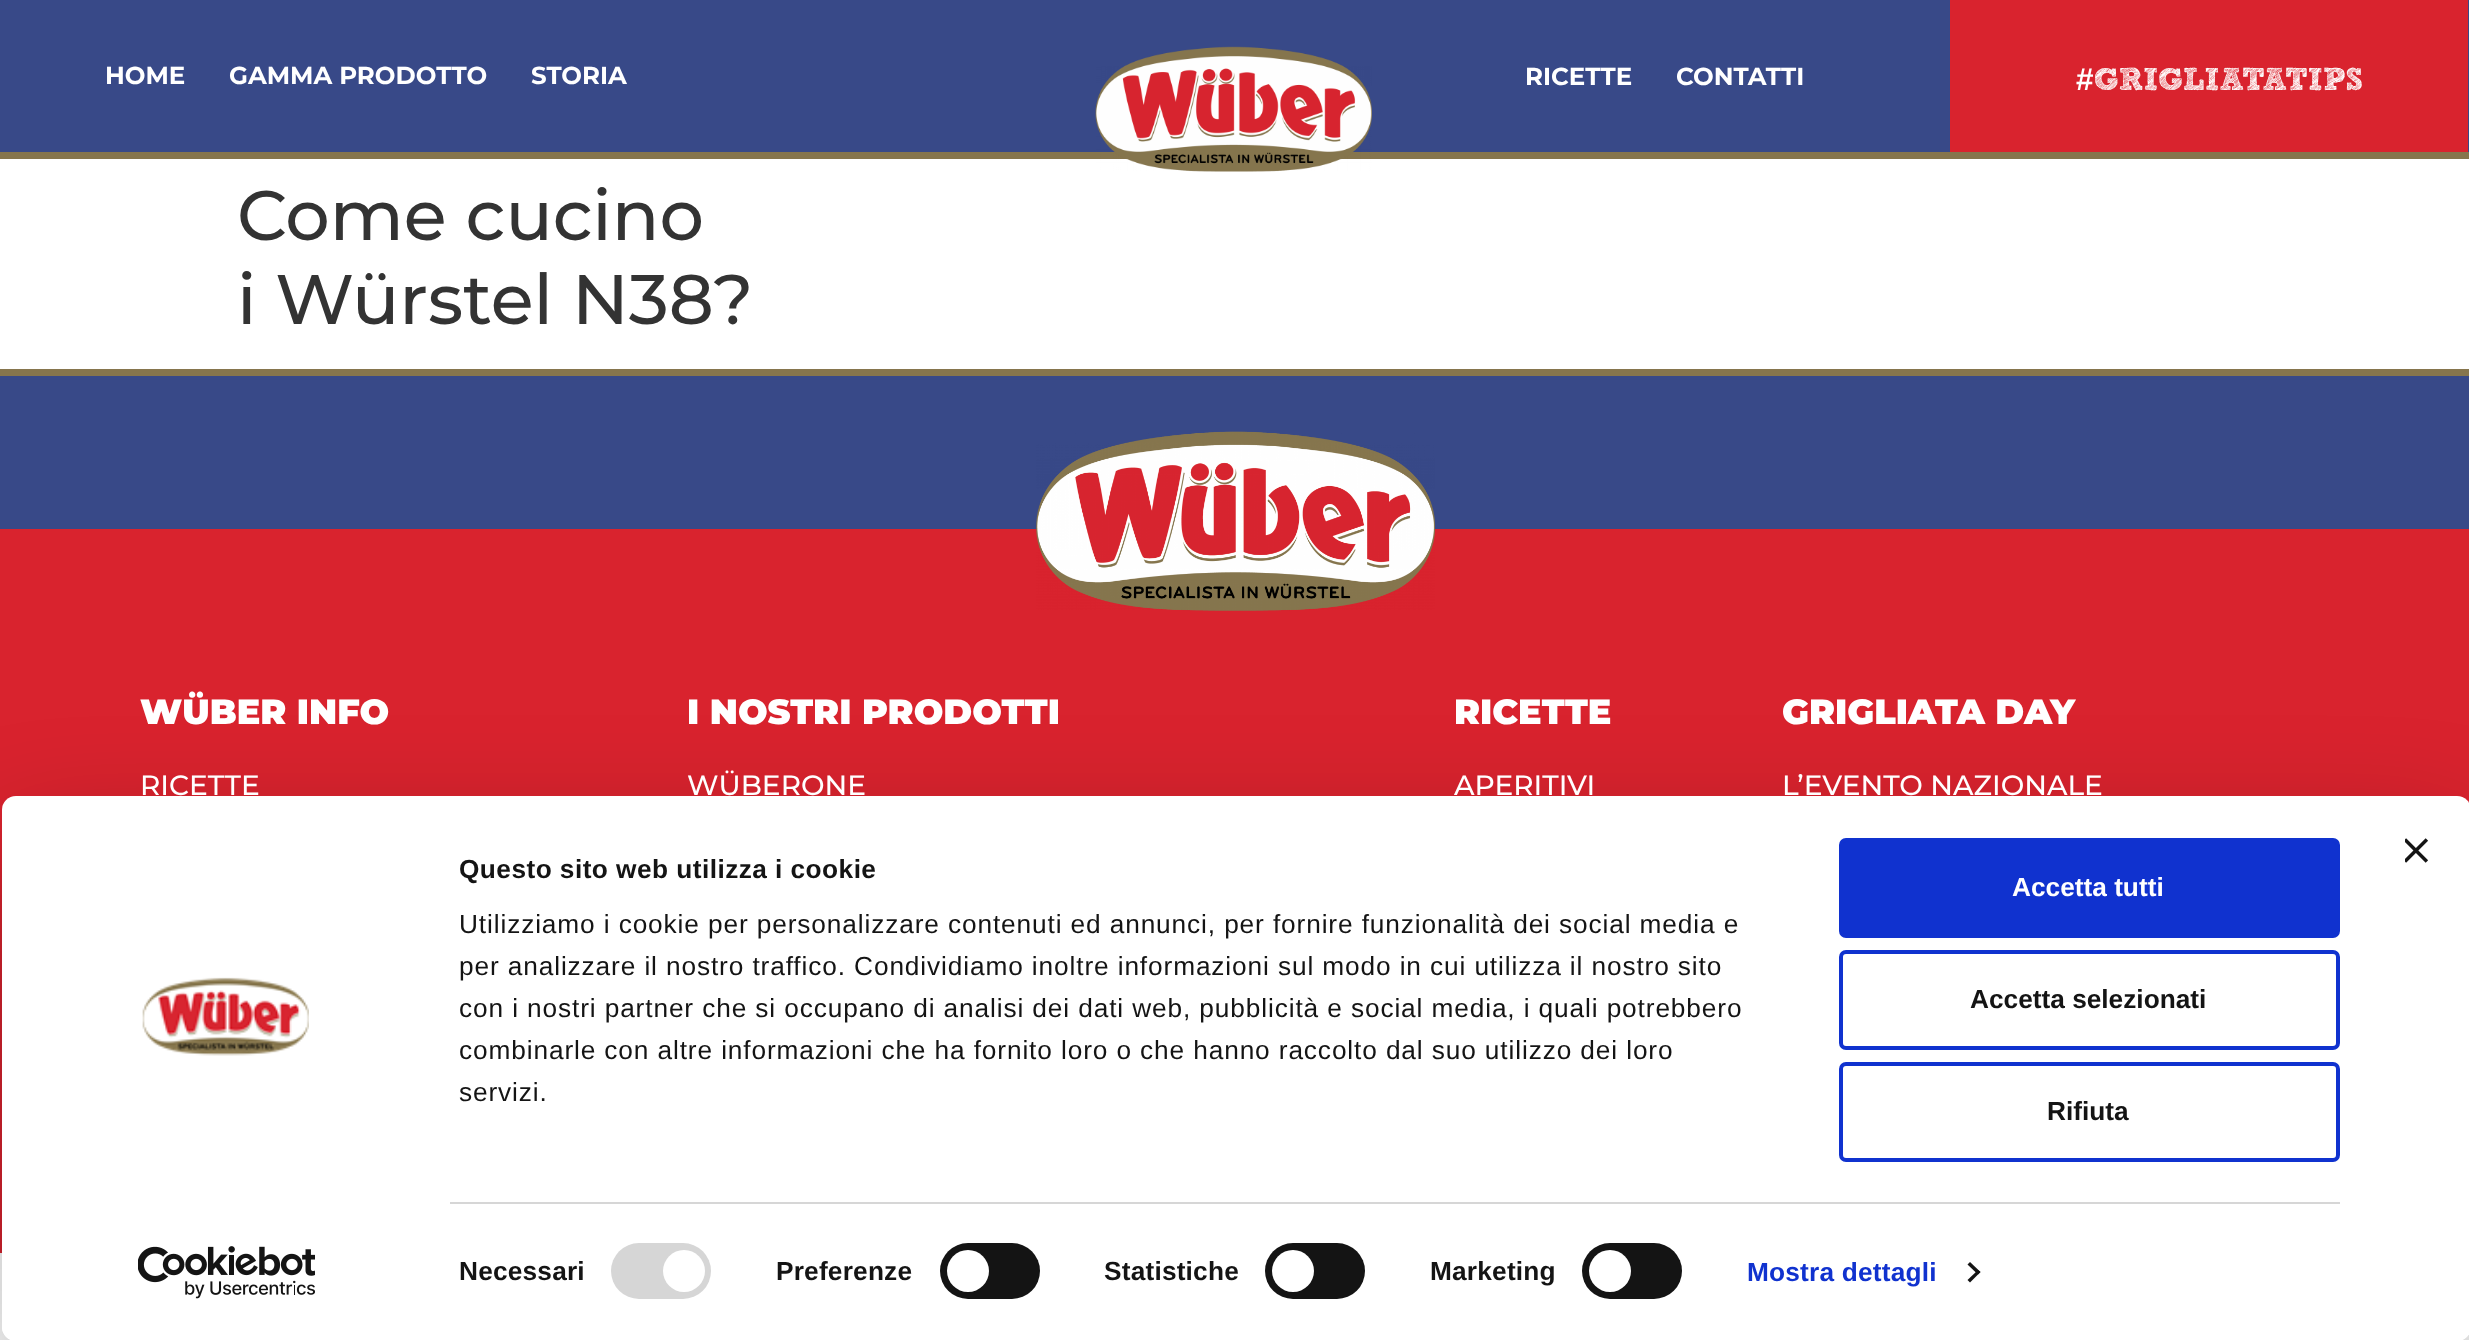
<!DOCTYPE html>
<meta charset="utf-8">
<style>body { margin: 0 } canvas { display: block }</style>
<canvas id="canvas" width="2469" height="1340"></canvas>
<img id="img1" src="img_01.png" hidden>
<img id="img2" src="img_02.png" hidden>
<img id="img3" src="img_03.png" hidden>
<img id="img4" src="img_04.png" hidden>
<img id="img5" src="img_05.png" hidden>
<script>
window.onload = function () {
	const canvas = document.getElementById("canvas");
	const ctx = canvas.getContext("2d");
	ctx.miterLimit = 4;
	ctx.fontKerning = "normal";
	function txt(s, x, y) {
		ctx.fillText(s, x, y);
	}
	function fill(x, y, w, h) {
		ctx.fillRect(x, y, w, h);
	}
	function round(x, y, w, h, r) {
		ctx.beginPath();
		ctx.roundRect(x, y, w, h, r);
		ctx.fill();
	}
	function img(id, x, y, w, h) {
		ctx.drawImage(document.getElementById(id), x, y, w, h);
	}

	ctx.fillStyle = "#FFFFFF";
	fill(0, 0, 2469, 1340);
	ctx.fillStyle = "#384988";
	fill(0, 0, 2469, 152);
	ctx.fillStyle = "#86754D";
	fill(0, 152, 2469, 7);
	img("img1", 1095, 46, 277, 126);
	ctx.fillStyle = "#D9232E";
	fill(1950, 0, 518, 152);
	ctx.fillStyle = "#384988";
	fill(0, 376, 2469, 153);
	ctx.fillStyle = "#86754D";
	fill(0, 369, 2469, 7);
	ctx.fillStyle = "#D9232E";
	fill(0, 529, 2469, 724);
	img("img2", 1036, 431, 399, 180);
	ctx.save();
	ctx.beginPath();
	ctx.moveTo(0, 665);
	ctx.lineTo(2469, 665);
	ctx.lineTo(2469, 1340);
	ctx.lineTo(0, 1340);
	ctx.closePath();
	ctx.moveTo(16, 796);
	ctx.lineTo(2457, 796);
	ctx.bezierCurveTo(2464.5, 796, 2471, 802.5, 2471, 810);
	ctx.lineTo(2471, 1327);
	ctx.bezierCurveTo(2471, 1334.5, 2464.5, 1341, 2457, 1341);
	ctx.lineTo(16, 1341);
	ctx.bezierCurveTo(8.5, 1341, 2, 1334.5, 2, 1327);
	ctx.lineTo(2, 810);
	ctx.bezierCurveTo(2, 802.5, 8.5, 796, 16, 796);
	ctx.closePath();
	ctx.clip("evenodd");
	ctx.fillStyle = "rgba(0, 0, 0, 0.3)";
	ctx.filter = "blur(61px)";
	ctx.beginPath();
	ctx.roundRect(2, 849, 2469, 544, 14);
	ctx.fill();
	ctx.filter = "none";
	ctx.restore();
	ctx.fillStyle = "#FFFFFF";
	round(2, 796, 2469, 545, 14);
	img("img3", 2405, 838, 23, 25);
	img("img4", 142, 977, 167, 79);
	img("img5", 138, 1246, 177, 53);
	ctx.fillStyle = "#D6D6D6";
	fill(450, 1202, 1890, 2);
	round(611, 1243, 100, 56, 28);
	ctx.fillStyle = "#FFFFFF";
	ctx.beginPath();
	ctx.arc(684, 1271, 21, 0, Math.PI * 2);
	ctx.fill();
	ctx.fillStyle = "#141414";
	round(940, 1243, 100, 56, 28);
	ctx.fillStyle = "#FFFFFF";
	ctx.beginPath();
	ctx.arc(968, 1271, 21, 0, Math.PI * 2);
	ctx.fill();
	ctx.fillStyle = "#141414";
	round(1265, 1243, 100, 56, 28);
	ctx.fillStyle = "#FFFFFF";
	ctx.beginPath();
	ctx.arc(1293, 1271, 21, 0, Math.PI * 2);
	ctx.fill();
	ctx.fillStyle = "#141414";
	round(1582, 1243, 100, 56, 28);
	ctx.fillStyle = "#FFFFFF";
	ctx.beginPath();
	ctx.arc(1610, 1271, 21, 0, Math.PI * 2);
	ctx.fill();
	ctx.fillStyle = "#141414";
	ctx.beginPath();
	ctx.moveTo(1970, 1262);
	ctx.lineTo(1980.5, 1272);
	ctx.lineTo(1978, 1274.5);
	ctx.lineTo(1967.5, 1264.5);
	ctx.closePath();
	ctx.fill();
	ctx.beginPath();
	ctx.moveTo(1978, 1270);
	ctx.lineTo(1980.5, 1272);
	ctx.lineTo(1970, 1282.5);
	ctx.lineTo(1967.5, 1280);
	ctx.closePath();
	ctx.fill();
	ctx.fillStyle = "#1032CF";
	ctx.beginPath();
	ctx.roundRect(1841, 840, 497, 96, 5);
	ctx.fill();
	ctx.strokeStyle = "#1032CF";
	ctx.lineWidth = 4;
	ctx.stroke();
	ctx.beginPath();
	ctx.roundRect(1841, 952, 497, 96, 5);
	ctx.stroke();
	ctx.beginPath();
	ctx.roundRect(1841, 1064, 497, 96, 5);
	ctx.stroke();
	ctx.font = "bold 24.5px Montserrat";
	ctx.fillStyle = "#FFFFFF";
	txt("HOME", 105, 84);
	txt("GAMMA PRODOTTO", 229, 84);
	txt("STORIA", 531, 84);
	txt("RICETTE", 1525, 85);
	txt("CONTATTI", 1676, 85);
	ctx.font = "bold 31.5px Liberation Sans";
	txt("#", 2076, 90);
	ctx.font = "bold 31.5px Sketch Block";
	txt("GRIGLIATATIPS", 2094, 90);
	ctx.font = "500 70px Montserrat";
	ctx.fillStyle = "#333333";
	txt("Come cucino", 237, 240);
	txt("i Würstel N38?", 237, 324);
	ctx.font = "900 35px Montserrat";
	ctx.fillStyle = "#FFFFFF";
	txt("WÜBER INFO", 140, 724);
	ctx.font = "500 28px Montserrat";
	txt("RICETTE", 140, 795);
	ctx.font = "900 35px Montserrat";
	txt("I NOSTRI PRODOTTI", 687, 724);
	ctx.font = "500 28px Montserrat";
	txt("WÜBERONE", 687, 795);
	ctx.font = "900 35px Montserrat";
	txt("RICETTE", 1454, 724);
	ctx.font = "500 28px Montserrat";
	txt("APERITIVI", 1454, 795);
	ctx.font = "900 35px Montserrat";
	txt("GRIGLIATA DAY", 1782, 724);
	ctx.font = "500 28px Montserrat";
	txt("L’EVENTO NAZIONALE", 1782, 795);
	ctx.save();
	ctx.beginPath();
	ctx.rect(460, 849, 1329, 303);
	ctx.clip();
	ctx.letterSpacing = "0.45px";
	ctx.font = "bold 26.25px Liberation Sans";
	ctx.fillStyle = "#141414";
	txt("Questo sito web utilizza i cookie", 459, 878);
	ctx.restore();
	ctx.letterSpacing = "0.88px";
	ctx.font = "26.25px Liberation Sans";
	ctx.fillStyle = "#141414";
	txt("Utilizziamo i cookie per personalizzare contenuti ed annunci, per fornire funzionalità dei social media e", 459, 933);
	txt("per analizzare il nostro traffico. Condividiamo inoltre informazioni sul modo in cui utilizza il nostro sito", 459, 975);
	ctx.save();
	ctx.beginPath();
	ctx.rect(460, 849, 1329, 303);
	ctx.clip();
	txt("con i nostri partner che si occupano di analisi dei dati web, pubblicità e social media, i quali potrebbero", 459, 1017);
	txt("combinarle con altre informazioni che ha fornito loro o che hanno raccolto dal suo utilizzo dei loro", 459, 1059);
	ctx.restore();
	txt("servizi.", 459, 1101);
	ctx.letterSpacing = "0.2px";
	ctx.font = "bold 26.25px Liberation Sans";
	txt("Necessari", 459, 1280);
	txt("Preferenze", 776, 1280);
	txt("Statistiche", 1104, 1280);
	txt("Marketing", 1430, 1280);
	ctx.fillStyle = "#1032CF";
	txt("Mostra dettagli", 1747, 1281);
	ctx.letterSpacing = "0px";
	ctx.fillStyle = "#FFFFFF";
	txt("Accetta tutti", 2012, 896);
	ctx.fillStyle = "#141414";
	txt("Accetta selezionati", 1970, 1008);
	txt("Rifiuta", 2047, 1120);
};
</script>
